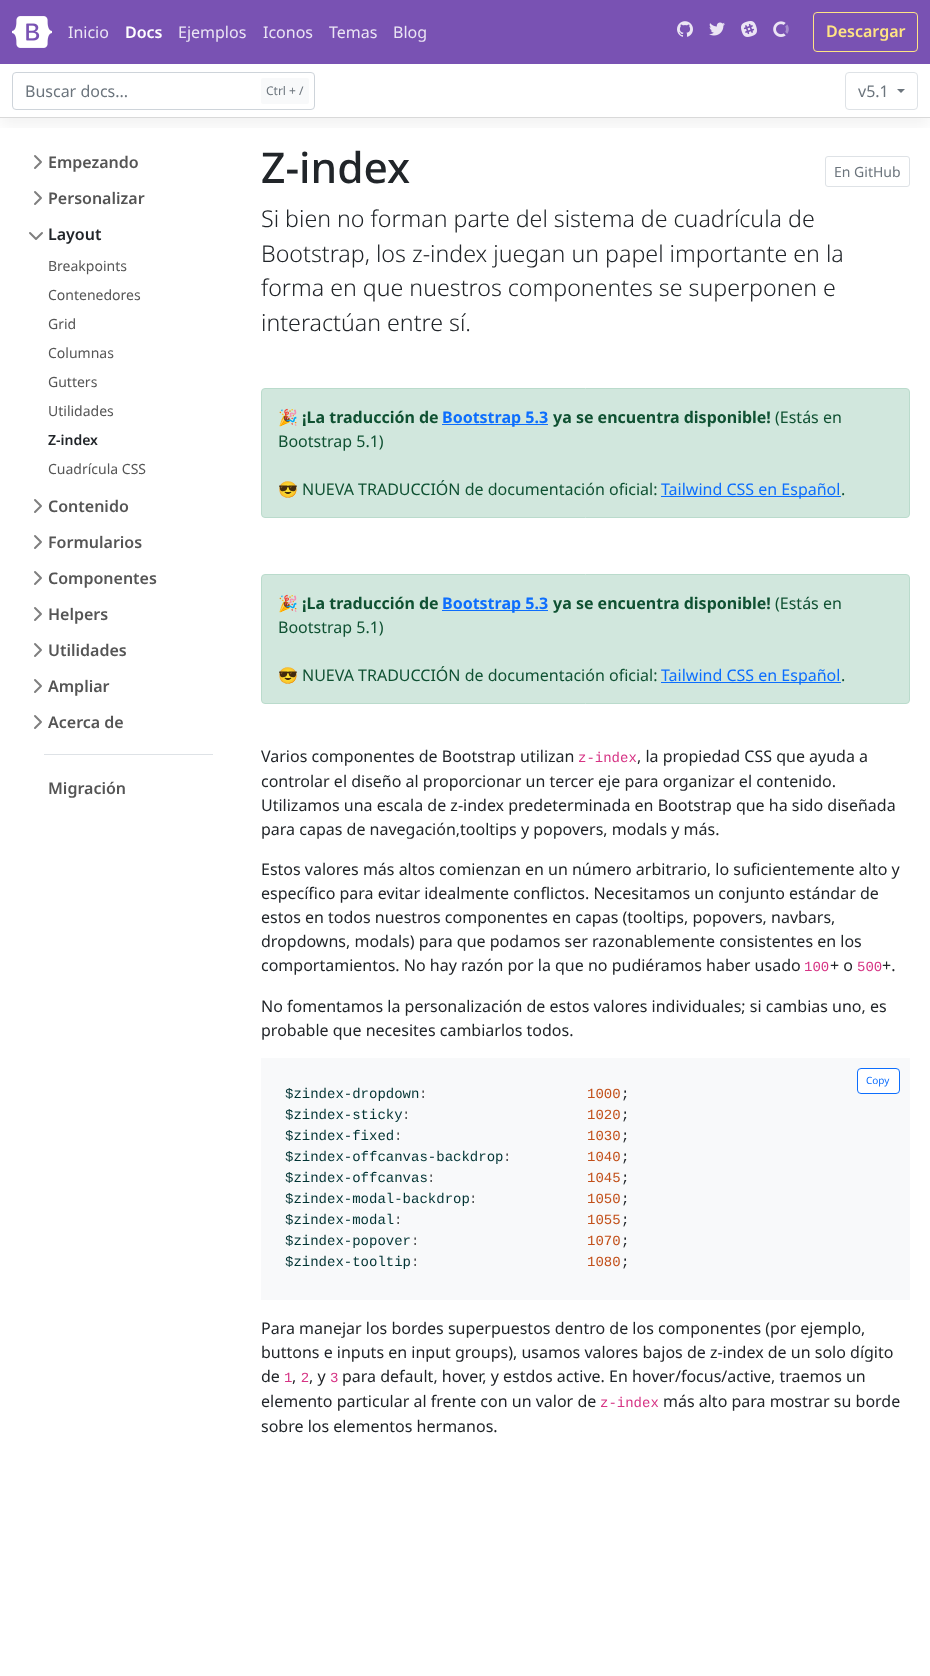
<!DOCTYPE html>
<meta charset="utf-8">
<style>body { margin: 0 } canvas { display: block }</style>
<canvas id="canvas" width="930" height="1676"></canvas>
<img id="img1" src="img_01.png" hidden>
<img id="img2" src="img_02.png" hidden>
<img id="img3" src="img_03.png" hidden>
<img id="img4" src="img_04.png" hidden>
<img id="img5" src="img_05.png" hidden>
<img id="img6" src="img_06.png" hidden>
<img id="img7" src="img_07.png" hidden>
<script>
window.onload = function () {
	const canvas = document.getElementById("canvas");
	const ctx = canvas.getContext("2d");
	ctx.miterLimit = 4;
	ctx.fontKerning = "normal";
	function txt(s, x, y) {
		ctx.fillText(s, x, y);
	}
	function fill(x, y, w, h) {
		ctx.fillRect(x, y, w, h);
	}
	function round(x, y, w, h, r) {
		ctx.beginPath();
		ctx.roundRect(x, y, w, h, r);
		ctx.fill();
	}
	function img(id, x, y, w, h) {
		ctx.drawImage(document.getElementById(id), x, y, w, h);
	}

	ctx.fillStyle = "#FFFFFF";
	fill(0, 0, 930, 1676);
	ctx.fillStyle = "#7952B3";
	fill(0, 0, 930, 64);
	img("img1", 12, 16, 40, 32);
	img("img2", 677, 21, 16, 16);
	img("img3", 709, 22, 16, 14);
	img("img4", 741, 21, 16, 16);
	img("img5", 773, 21, 16, 16);
	ctx.beginPath();
	ctx.roundRect(813.5, 12.5, 104, 39, 3.5);
	ctx.strokeStyle = "#FFE484";
	ctx.stroke();
	ctx.save();
	ctx.beginPath();
	ctx.rect(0, 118, 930, 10);
	ctx.clip();
	ctx.fillStyle = "rgba(0, 0, 0, 0.05)";
	ctx.filter = "blur(8px)";
	ctx.beginPath();
	ctx.rect(0, 72, 930, 54);
	ctx.fill();
	ctx.filter = "none";
	ctx.restore();
	ctx.fillStyle = "#D9D9D9";
	fill(0, 117, 930, 1);
	ctx.beginPath();
	ctx.roundRect(12.5, 72.5, 302, 37, 3.5);
	ctx.strokeStyle = "#CED4DA";
	ctx.stroke();
	ctx.fillStyle = "#F8F9FA";
	round(261, 78, 48, 26, 2);
	ctx.beginPath();
	ctx.roundRect(845.5, 72.5, 72, 37, 3.5);
	ctx.strokeStyle = "#DEE2E6";
	ctx.stroke();
	ctx.fillStyle = "#6C757D";
	ctx.beginPath();
	ctx.moveTo(897, 89);
	ctx.lineTo(905, 89);
	ctx.lineTo(901, 93);
	ctx.closePath();
	ctx.fill();
	img("img6", 34, 155, 8, 14);
	img("img6", 34, 191, 8, 14);
	img("img7", 29, 232, 14, 8);
	img("img6", 34, 499, 8, 14);
	img("img6", 34, 535, 8, 14);
	img("img6", 34, 571, 8, 14);
	img("img6", 34, 607, 8, 14);
	img("img6", 34, 643, 8, 14);
	img("img6", 34, 679, 8, 14);
	img("img6", 34, 715, 8, 14);
	ctx.fillStyle = "#DEE2E6";
	fill(44, 754, 169, 1);
	ctx.beginPath();
	ctx.roundRect(825.5, 156.5, 84, 30, 2.5);
	ctx.stroke();
	ctx.fillStyle = "#D1E7DD";
	ctx.beginPath();
	ctx.roundRect(261.5, 388.5, 648, 129, 3.5);
	ctx.fill();
	ctx.strokeStyle = "#BADBCC";
	ctx.stroke();
	ctx.fillStyle = "#0D6EFD";
	fill(442, 424, 106, 1);
	fill(661, 496, 180, 1);
	ctx.fillStyle = "#D1E7DD";
	ctx.beginPath();
	ctx.roundRect(261.5, 574.5, 648, 129, 3.5);
	ctx.fill();
	ctx.stroke();
	ctx.fillStyle = "#0D6EFD";
	fill(442, 610, 106, 1);
	fill(661, 682, 180, 1);
	ctx.fillStyle = "#F8F9FA";
	fill(261, 1058, 649, 242);
	ctx.fillStyle = "#FFFFFF";
	ctx.beginPath();
	ctx.roundRect(857.5, 1068.5, 42, 25, 3.5);
	ctx.fill();
	ctx.strokeStyle = "#0D6EFD";
	ctx.stroke();
	ctx.font = "16px Noto Sans";
	ctx.fillStyle = "#EBE5F4";
	txt("Inicio", 68, 38);
	ctx.font = "600 16px Noto Sans";
	ctx.fillStyle = "#FFFFFF";
	txt("Docs", 125, 38);
	ctx.font = "16px Noto Sans";
	ctx.fillStyle = "#EBE5F4";
	txt("Ejemplos", 178, 38);
	txt("Iconos", 263, 38);
	txt("Temas", 329, 38);
	txt("Blog", 393, 38);
	ctx.font = "600 16px Noto Sans";
	ctx.fillStyle = "#FFE484";
	txt("Descargar", 826, 37);
	ctx.font = "16px Noto Sans";
	ctx.fillStyle = "#6C757D";
	txt("Buscar docs...", 25, 97);
	ctx.font = "12px Noto Sans";
	txt("Ctrl + /", 266, 95);
	ctx.font = "16px Noto Sans";
	txt("v5.1", 858, 97);
	ctx.font = "600 16px Noto Sans";
	ctx.fillStyle = "#555555";
	txt("Empezando", 48, 168);
	txt("Personalizar", 48, 204);
	ctx.fillStyle = "#212529";
	txt("Layout", 48, 240);
	ctx.font = "14px Noto Sans";
	ctx.fillStyle = "#555555";
	txt("Breakpoints", 48, 271);
	txt("Contenedores", 48, 300);
	txt("Grid", 48, 329);
	txt("Columnas", 48, 358);
	txt("Gutters", 48, 387);
	txt("Utilidades", 48, 416);
	ctx.font = "600 14px Noto Sans";
	ctx.fillStyle = "#212529";
	txt("Z-index", 48, 445);
	ctx.font = "14px Noto Sans";
	ctx.fillStyle = "#555555";
	txt("Cuadrícula CSS", 48, 474);
	ctx.font = "600 16px Noto Sans";
	txt("Contenido", 48, 512);
	txt("Formularios", 48, 548);
	txt("Componentes", 48, 584);
	txt("Helpers", 48, 620);
	txt("Utilidades", 48, 656);
	txt("Ampliar", 48, 692);
	txt("Acerca de", 48, 728);
	txt("Migración", 48, 794);
	ctx.font = "500 42.5px Noto Sans";
	ctx.fillStyle = "#212529";
	txt("Z-index", 261, 183);
	ctx.font = "14px Noto Sans";
	ctx.fillStyle = "#6C757D";
	txt("En GitHub", 834, 177);
	ctx.font = "300 23.2px Noto Sans";
	ctx.fillStyle = "#212529";
	txt("Si bien no forman parte del sistema de cuadrícula de", 261, 227);
	txt("Bootstrap, los z-index juegan un papel importante en la", 261, 262);
	txt("forma en que nuestros componentes se superponen e", 261, 296);
	txt("interactúan entre sí.", 261, 331);
	ctx.font = "16px Noto Color Emoji";
	ctx.fillStyle = "#0F5132";
	txt("🎉", 278, 423);
	ctx.font = "bold 16px Noto Sans";
	txt("¡La traducción de", 302, 423);
	ctx.fillStyle = "#0D6EFD";
	txt("Bootstrap 5.3", 442, 423);
	ctx.fillStyle = "#0F5132";
	txt("ya se encuentra disponible!", 553, 423);
	ctx.font = "16px Noto Sans";
	txt("(Estás en", 775, 423);
	txt("Bootstrap 5.1)", 278, 447);
	ctx.font = "16px Noto Color Emoji";
	txt("😎", 278, 495);
	ctx.font = "16px Noto Sans";
	txt("NUEVA TRADUCCIÓN de documentación oficial:", 302, 495);
	ctx.fillStyle = "#0D6EFD";
	txt("Tailwind CSS en Español", 661, 495);
	ctx.fillStyle = "#0F5132";
	txt(".", 841, 495);
	ctx.font = "16px Noto Color Emoji";
	txt("🎉", 278, 609);
	ctx.font = "bold 16px Noto Sans";
	txt("¡La traducción de", 302, 609);
	ctx.fillStyle = "#0D6EFD";
	txt("Bootstrap 5.3", 442, 609);
	ctx.fillStyle = "#0F5132";
	txt("ya se encuentra disponible!", 553, 609);
	ctx.font = "16px Noto Sans";
	txt("(Estás en", 775, 609);
	txt("Bootstrap 5.1)", 278, 633);
	ctx.font = "16px Noto Color Emoji";
	txt("😎", 278, 681);
	ctx.font = "16px Noto Sans";
	txt("NUEVA TRADUCCIÓN de documentación oficial:", 302, 681);
	ctx.fillStyle = "#0D6EFD";
	txt("Tailwind CSS en Español", 661, 681);
	ctx.fillStyle = "#0F5132";
	txt(".", 841, 681);
	ctx.fillStyle = "#212529";
	txt("Varios componentes de Bootstrap utilizan", 261, 762);
	ctx.font = "14px Liberation Mono";
	ctx.fillStyle = "#D63384";
	txt("z-index", 578, 762);
	ctx.font = "16px Noto Sans";
	ctx.fillStyle = "#212529";
	txt(", la propiedad CSS que ayuda a", 637, 762);
	txt("controlar el diseño al proporcionar un tercer eje para organizar el contenido.", 261, 787);
	txt("Utilizamos una escala de z-index predeterminada en Bootstrap que ha sido diseñada", 261, 811);
	txt("para capas de navegación,tooltips y popovers, modals y más.", 261, 835);
	txt("Estos valores más altos comienzan en un número arbitrario, lo suficientemente alto y", 261, 875);
	txt("específico para evitar idealmente conflictos. Necesitamos un conjunto estándar de", 261, 899);
	txt("estos en todos nuestros componentes en capas (tooltips, popovers, navbars,", 261, 923);
	txt("dropdowns, modals) para que podamos ser razonablemente consistentes en los", 261, 947);
	txt("comportamientos. No hay razón por la que no pudiéramos haber usado", 261, 971);
	ctx.font = "14px Liberation Mono";
	ctx.fillStyle = "#D63384";
	txt("100", 804, 971);
	ctx.font = "16px Noto Sans";
	ctx.fillStyle = "#212529";
	txt("+ o", 830, 971);
	ctx.font = "14px Liberation Mono";
	ctx.fillStyle = "#D63384";
	txt("500", 857, 971);
	ctx.font = "16px Noto Sans";
	ctx.fillStyle = "#212529";
	txt("+.", 882, 971);
	txt("No fomentamos la personalización de estos valores individuales; si cambias uno, es", 261, 1012);
	txt("probable que necesites cambiarlos todos.", 261, 1036);
	ctx.font = "10px Noto Sans";
	ctx.fillStyle = "#0D6EFD";
	txt("Copy", 866, 1084);
	ctx.font = "14px Liberation Mono";
	ctx.fillStyle = "#003333";
	txt("$zindex-dropdown", 285, 1098);
	ctx.fillStyle = "#555555";
	txt(":", 419, 1098);
	ctx.fillStyle = "#C24F19";
	txt("1000", 587, 1098);
	ctx.fillStyle = "#212529";
	txt(";", 621, 1098);
	ctx.fillStyle = "#003333";
	txt("$zindex-sticky", 285, 1119);
	ctx.fillStyle = "#555555";
	txt(":", 402, 1119);
	ctx.fillStyle = "#C24F19";
	txt("1020", 587, 1119);
	ctx.fillStyle = "#212529";
	txt(";", 621, 1119);
	ctx.fillStyle = "#003333";
	txt("$zindex-fixed", 285, 1140);
	ctx.fillStyle = "#555555";
	txt(":", 394, 1140);
	ctx.fillStyle = "#C24F19";
	txt("1030", 587, 1140);
	ctx.fillStyle = "#212529";
	txt(";", 621, 1140);
	ctx.fillStyle = "#003333";
	txt("$zindex-offcanvas-backdrop", 285, 1161);
	ctx.fillStyle = "#555555";
	txt(":", 503, 1161);
	ctx.fillStyle = "#C24F19";
	txt("1040", 587, 1161);
	ctx.fillStyle = "#212529";
	txt(";", 621, 1161);
	ctx.fillStyle = "#003333";
	txt("$zindex-offcanvas", 285, 1182);
	ctx.fillStyle = "#555555";
	txt(":", 427, 1182);
	ctx.fillStyle = "#C24F19";
	txt("1045", 587, 1182);
	ctx.fillStyle = "#212529";
	txt(";", 621, 1182);
	ctx.fillStyle = "#003333";
	txt("$zindex-modal-backdrop", 285, 1203);
	ctx.fillStyle = "#555555";
	txt(":", 469, 1203);
	ctx.fillStyle = "#C24F19";
	txt("1050", 587, 1203);
	ctx.fillStyle = "#212529";
	txt(";", 621, 1203);
	ctx.fillStyle = "#003333";
	txt("$zindex-modal", 285, 1224);
	ctx.fillStyle = "#555555";
	txt(":", 394, 1224);
	ctx.fillStyle = "#C24F19";
	txt("1055", 587, 1224);
	ctx.fillStyle = "#212529";
	txt(";", 621, 1224);
	ctx.fillStyle = "#003333";
	txt("$zindex-popover", 285, 1245);
	ctx.fillStyle = "#555555";
	txt(":", 411, 1245);
	ctx.fillStyle = "#C24F19";
	txt("1070", 587, 1245);
	ctx.fillStyle = "#212529";
	txt(";", 621, 1245);
	ctx.fillStyle = "#003333";
	txt("$zindex-tooltip", 285, 1266);
	ctx.fillStyle = "#555555";
	txt(":", 411, 1266);
	ctx.fillStyle = "#C24F19";
	txt("1080", 587, 1266);
	ctx.fillStyle = "#212529";
	txt(";", 621, 1266);
	ctx.font = "16px Noto Sans";
	txt("Para manejar los bordes superpuestos dentro de los componentes (por ejemplo,", 261, 1334);
	txt("buttons e inputs en input groups), usamos valores bajos de z-index de un solo dígito", 261, 1358);
	txt("de", 261, 1382);
	ctx.font = "14px Liberation Mono";
	ctx.fillStyle = "#D63384";
	txt("1 2", 284, 1382);
	ctx.font = "16px Noto Sans";
	ctx.fillStyle = "#212529";
	txt(", y", 309, 1382);
	ctx.font = "14px Liberation Mono";
	ctx.fillStyle = "#D63384";
	txt("3", 330, 1382);
	ctx.font = "16px Noto Sans";
	ctx.fillStyle = "#212529";
	txt("para default, hover, y estdos active. En hover/focus/active, traemos un", 342, 1382);
	txt(",", 292, 1382);
	txt("elemento particular al frente con un valor de", 261, 1407);
	ctx.font = "14px Liberation Mono";
	ctx.fillStyle = "#D63384";
	txt("z-index", 600, 1407);
	ctx.font = "16px Noto Sans";
	ctx.fillStyle = "#212529";
	txt("más alto para mostrar su borde", 663, 1407);
	txt("sobre los elementos hermanos.", 261, 1432);
};
</script>
